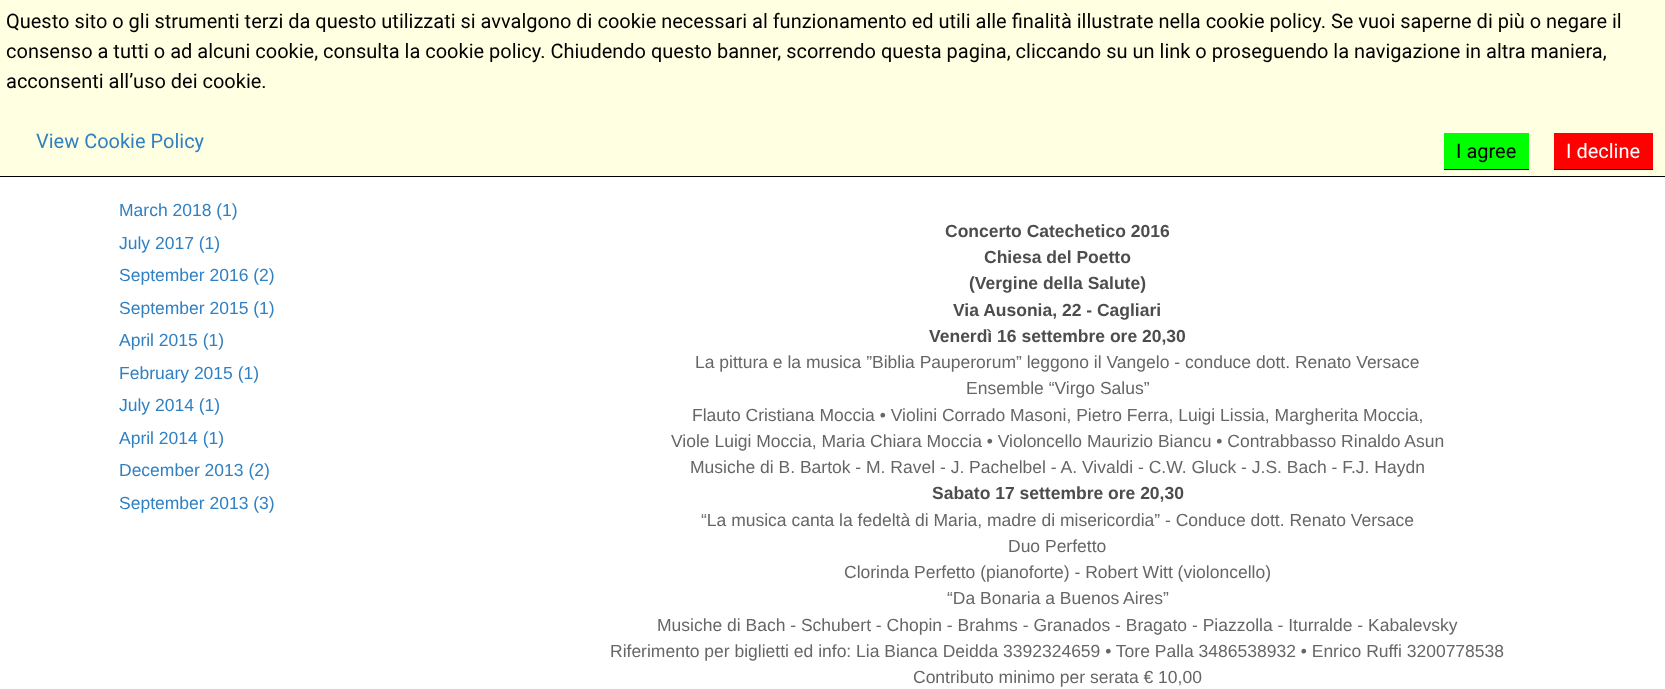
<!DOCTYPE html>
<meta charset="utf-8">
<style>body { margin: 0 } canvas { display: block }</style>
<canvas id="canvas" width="1665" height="689"></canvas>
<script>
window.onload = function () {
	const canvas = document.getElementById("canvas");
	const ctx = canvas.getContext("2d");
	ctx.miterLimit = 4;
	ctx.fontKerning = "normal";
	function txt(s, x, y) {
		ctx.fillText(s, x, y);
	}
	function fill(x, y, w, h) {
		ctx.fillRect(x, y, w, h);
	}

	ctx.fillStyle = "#FFFFFF";
	fill(0, 0, 1665, 689);
	ctx.fillStyle = "#FFFFE1";
	fill(0, 0, 1665, 178);
	ctx.fillStyle = "#000000";
	fill(0, 176, 1665, 1);
	ctx.fillStyle = "#00FF00";
	fill(1444, 133, 85, 36);
	ctx.fillStyle = "#000000";
	fill(1444, 169, 85, 1);
	ctx.fillStyle = "#FF0000";
	fill(1554, 133, 99, 36);
	ctx.fillStyle = "#000000";
	fill(1554, 169, 99, 1);
	ctx.font = "20px Roboto";
	txt("Questo sito o gli strumenti terzi da questo utilizzati si avvalgono di cookie necessari al funzionamento ed utili alle finalità illustrate nella cookie policy. Se vuoi saperne di più o negare il", 6, 28);
	txt("consenso a tutti o ad alcuni cookie, consulta la cookie policy. Chiudendo questo banner, scorrendo questa pagina, cliccando su un link o proseguendo la navigazione in altra maniera,", 6, 58);
	txt("acconsenti all’uso dei cookie.", 6, 88);
	ctx.fillStyle = "#3180C2";
	txt("View Cookie Policy", 36, 148);
	ctx.fillStyle = "#000000";
	txt("I agree", 1456, 158);
	ctx.fillStyle = "#FFFFFF";
	txt("I decline", 1566, 158);
	ctx.font = "17.5px Liberation Sans";
	ctx.fillStyle = "#3180C2";
	txt("March 2018 (1)", 119, 216);
	txt("July 2017 (1)", 119, 249);
	txt("September 2016 (2)", 119, 281);
	txt("September 2015 (1)", 119, 314);
	txt("April 2015 (1)", 119, 346);
	txt("February 2015 (1)", 119, 379);
	txt("July 2014 (1)", 119, 411);
	txt("April 2014 (1)", 119, 444);
	txt("December 2013 (2)", 119, 476);
	txt("September 2013 (3)", 119, 509);
	ctx.font = "bold 17.5px Liberation Sans";
	ctx.fillStyle = "#4D4D4D";
	txt("Concerto Catechetico 2016", 945, 237);
	txt("Chiesa del Poetto", 984, 263);
	txt("(Vergine della Salute)", 969, 289);
	txt("Via Ausonia, 22 - Cagliari", 953, 316);
	txt("Venerdì 16 settembre ore 20,30", 929, 342);
	ctx.font = "17.5px Liberation Sans";
	ctx.fillStyle = "#666666";
	txt("La pittura e la musica ”Biblia Pauperorum” leggono il Vangelo - conduce dott. Renato Versace", 695, 368);
	txt("Ensemble “Virgo Salus”", 966, 394);
	txt("Flauto Cristiana Moccia • Violini Corrado Masoni, Pietro Ferra, Luigi Lissia, Margherita Moccia,", 692, 421);
	txt("Viole Luigi Moccia, Maria Chiara Moccia • Violoncello Maurizio Biancu • Contrabbasso Rinaldo Asun", 671, 447);
	txt("Musiche di B. Bartok - M. Ravel - J. Pachelbel - A. Vivaldi - C.W. Gluck - J.S. Bach - F.J. Haydn", 690, 473);
	ctx.font = "bold 17.5px Liberation Sans";
	ctx.fillStyle = "#4D4D4D";
	txt("Sabato 17 settembre ore 20,30", 932, 499);
	ctx.font = "17.5px Liberation Sans";
	ctx.fillStyle = "#666666";
	txt("“La musica canta la fedeltà di Maria, madre di misericordia” - Conduce dott. Renato Versace", 701, 526);
	txt("Duo Perfetto", 1008, 552);
	txt("Clorinda Perfetto (pianoforte) - Robert Witt (violoncello)", 844, 578);
	txt("“Da Bonaria a Buenos Aires”", 947, 604);
	txt("Musiche di Bach - Schubert - Chopin - Brahms - Granados - Bragato - Piazzolla - Iturralde - Kabalevsky", 657, 631);
	txt("Riferimento per biglietti ed info: Lia Bianca Deidda 3392324659 • Tore Palla 3486538932 • Enrico Ruffi 3200778538", 610, 657);
	txt("Contributo minimo per serata € 10,00", 913, 683);
};
</script>
